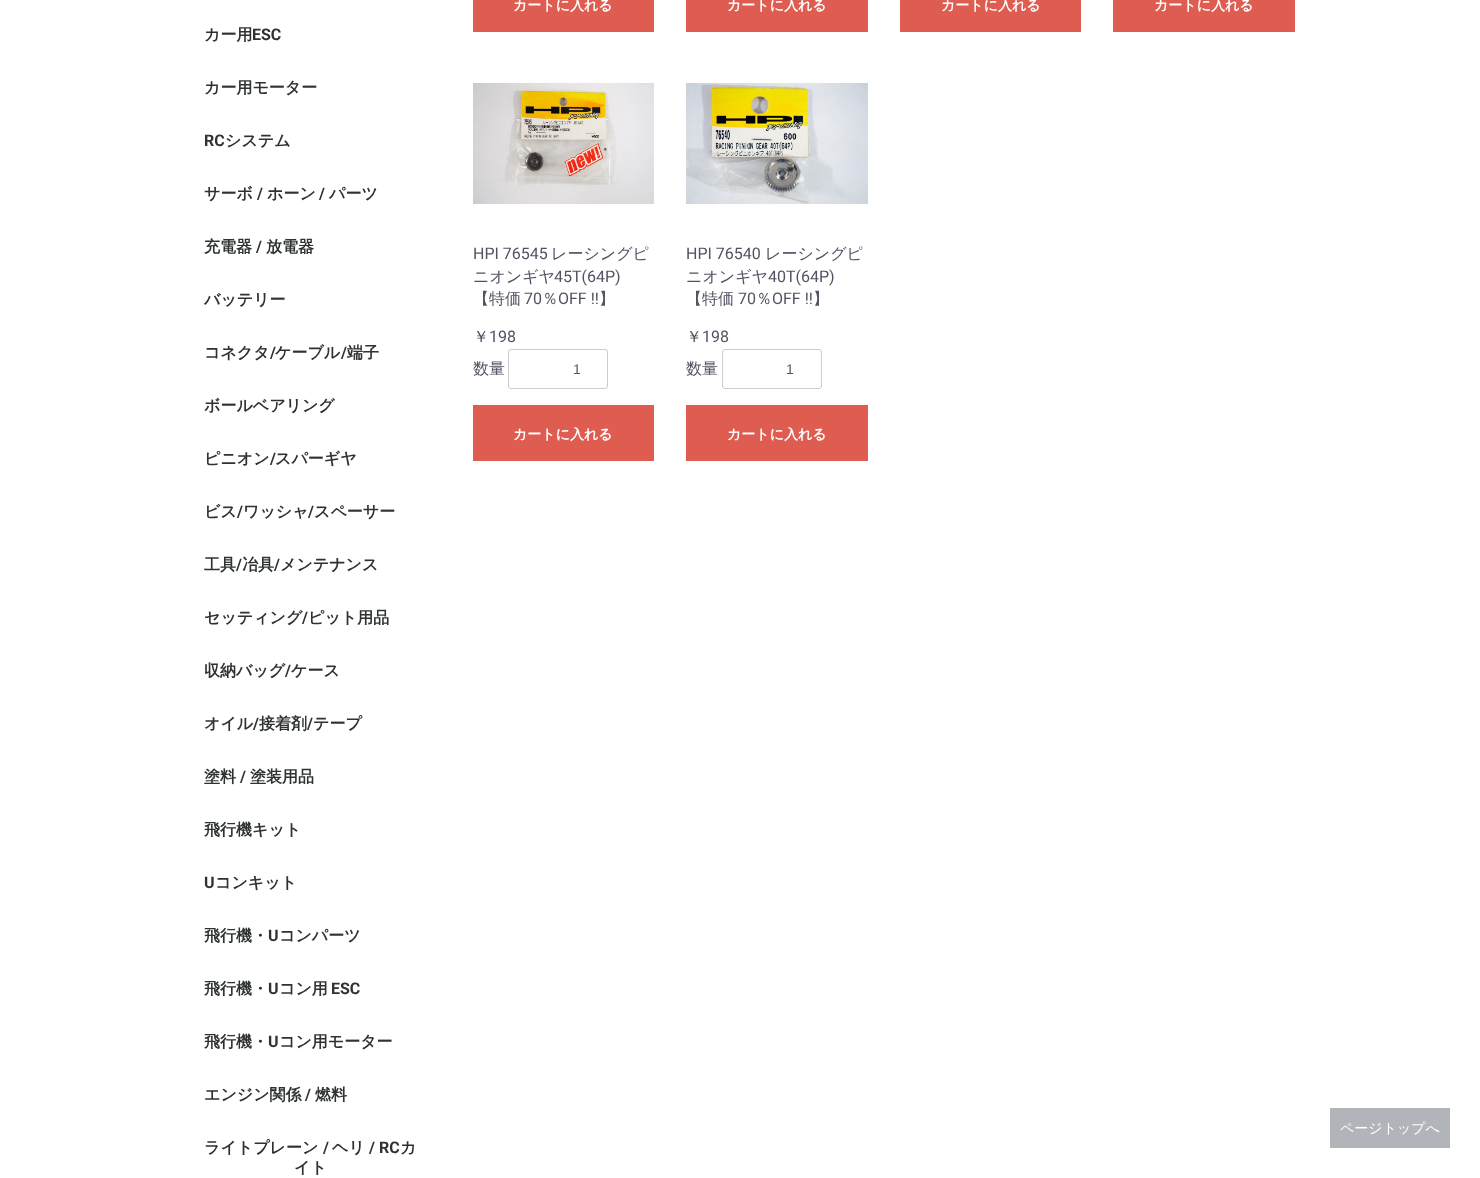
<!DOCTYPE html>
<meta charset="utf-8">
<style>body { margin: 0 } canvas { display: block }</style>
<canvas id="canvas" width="1480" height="1178"></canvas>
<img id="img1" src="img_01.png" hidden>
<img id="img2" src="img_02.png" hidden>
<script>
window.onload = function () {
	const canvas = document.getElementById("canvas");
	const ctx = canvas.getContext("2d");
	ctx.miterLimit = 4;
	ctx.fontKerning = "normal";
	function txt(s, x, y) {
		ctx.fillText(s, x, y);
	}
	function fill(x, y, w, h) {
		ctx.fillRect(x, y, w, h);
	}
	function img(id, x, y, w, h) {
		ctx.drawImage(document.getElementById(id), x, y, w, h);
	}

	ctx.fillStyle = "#FFFFFF";
	fill(0, 0, 1480, 1178);
	ctx.fillStyle = "#DE5D50";
	fill(473, 0, 181, 32);
	fill(686, 0, 182, 32);
	fill(900, 0, 181, 32);
	fill(1113, 0, 182, 32);
	img("img1", 473, 83, 181, 121);
	ctx.beginPath();
	ctx.roundRect(508.5, 349.5, 99, 39, 2.5);
	ctx.strokeStyle = "#CCCCCC";
	ctx.stroke();
	fill(473, 405, 181, 56);
	img("img2", 686, 83, 182, 121);
	ctx.beginPath();
	ctx.roundRect(722.5, 349.5, 99, 39, 2.5);
	ctx.stroke();
	fill(686, 405, 182, 56);
	ctx.fillStyle = "#B1B5BA";
	fill(1330, 1108, 120, 40);
	ctx.font = "bold 16px WenQuanYi Zen Hei";
	ctx.fillStyle = "#2E3233";
	txt("カー用", 204, 40);
	ctx.font = "bold 16px Roboto";
	txt("ESC", 252, 40);
	ctx.font = "bold 16px WenQuanYi Zen Hei";
	txt("カー用モーター", 204, 93);
	ctx.font = "bold 16px Roboto";
	txt("RC", 204, 146);
	ctx.font = "bold 16px WenQuanYi Zen Hei";
	txt("システム", 225, 146);
	txt("サーボ", 204, 199);
	ctx.font = "bold 16px Roboto";
	txt("/", 257, 199);
	ctx.font = "bold 16px WenQuanYi Zen Hei";
	txt("ホーン", 267, 199);
	ctx.font = "bold 16px Roboto";
	txt("/", 319, 199);
	ctx.font = "bold 16px WenQuanYi Zen Hei";
	txt("パーツ", 329, 199);
	txt("充電器", 204, 252);
	ctx.font = "bold 16px Roboto";
	txt("/", 256, 252);
	ctx.font = "bold 16px WenQuanYi Zen Hei";
	txt("放電器", 266, 252);
	txt("バッテリー", 204, 305);
	txt("コネクタ", 204, 358);
	ctx.font = "bold 16px Roboto";
	txt("/", 270, 358);
	ctx.font = "bold 16px WenQuanYi Zen Hei";
	txt("ケーブル", 275, 358);
	ctx.font = "bold 16px Roboto";
	txt("/", 341, 358);
	ctx.font = "bold 16px WenQuanYi Zen Hei";
	txt("端子", 347, 358);
	txt("ボールベアリング", 204, 411);
	txt("ピニオン", 204, 464);
	ctx.font = "bold 16px Roboto";
	txt("/", 270, 464);
	ctx.font = "bold 16px WenQuanYi Zen Hei";
	txt("スパーギヤ", 275, 464);
	txt("ビス", 204, 517);
	ctx.font = "bold 16px Roboto";
	txt("/", 237, 517);
	ctx.font = "bold 16px WenQuanYi Zen Hei";
	txt("ワッシャ", 243, 517);
	ctx.font = "bold 16px Roboto";
	txt("/", 308, 517);
	ctx.font = "bold 16px WenQuanYi Zen Hei";
	txt("スペーサー", 314, 517);
	txt("工具", 204, 570);
	ctx.font = "bold 16px Roboto";
	txt("/", 236, 570);
	ctx.font = "bold 16px WenQuanYi Zen Hei";
	txt("冶具", 242, 570);
	ctx.font = "bold 16px Roboto";
	txt("/", 274, 570);
	ctx.font = "bold 16px WenQuanYi Zen Hei";
	txt("メンテナンス", 280, 570);
	txt("セッティング", 204, 623);
	ctx.font = "bold 16px Roboto";
	txt("/", 302, 623);
	ctx.font = "bold 16px WenQuanYi Zen Hei";
	txt("ピット用品", 308, 623);
	txt("収納バッグ", 204, 676);
	ctx.font = "bold 16px Roboto";
	txt("/", 285, 676);
	ctx.font = "bold 16px WenQuanYi Zen Hei";
	txt("ケース", 291, 676);
	txt("オイル", 204, 729);
	ctx.font = "bold 16px Roboto";
	txt("/", 253, 729);
	ctx.font = "bold 16px WenQuanYi Zen Hei";
	txt("接着剤", 259, 729);
	ctx.font = "bold 16px Roboto";
	txt("/", 307, 729);
	ctx.font = "bold 16px WenQuanYi Zen Hei";
	txt("テープ", 313, 729);
	txt("塗料", 204, 782);
	ctx.font = "bold 16px Roboto";
	txt("/", 240, 782);
	ctx.font = "bold 16px WenQuanYi Zen Hei";
	txt("塗装用品", 250, 782);
	txt("飛行機キット", 204, 835);
	ctx.font = "bold 16px Roboto";
	txt("U", 204, 888);
	ctx.font = "bold 16px WenQuanYi Zen Hei";
	txt("コンキット", 215, 888);
	txt("飛行機・", 204, 941);
	ctx.font = "bold 16px Roboto";
	txt("U", 268, 941);
	ctx.font = "bold 16px WenQuanYi Zen Hei";
	txt("コンパーツ", 279, 941);
	txt("飛行機・", 204, 994);
	ctx.font = "bold 16px Roboto";
	txt("U", 268, 994);
	ctx.font = "bold 16px WenQuanYi Zen Hei";
	txt("コン用", 279, 994);
	ctx.font = "bold 16px Roboto";
	txt("ESC", 331, 994);
	ctx.font = "bold 16px WenQuanYi Zen Hei";
	txt("飛行機・", 204, 1047);
	ctx.font = "bold 16px Roboto";
	txt("U", 268, 1047);
	ctx.font = "bold 16px WenQuanYi Zen Hei";
	txt("コン用モーター", 279, 1047);
	txt("エンジン関係", 204, 1100);
	ctx.font = "bold 16px Roboto";
	txt("/", 305, 1100);
	ctx.font = "bold 16px WenQuanYi Zen Hei";
	txt("燃料", 315, 1100);
	txt("ライトプレーン", 204, 1153);
	ctx.font = "bold 16px Roboto";
	txt("/", 323, 1153);
	ctx.font = "bold 16px WenQuanYi Zen Hei";
	txt("ヘリ", 332, 1153);
	ctx.font = "bold 16px Roboto";
	txt("/ RC", 369, 1153);
	ctx.font = "bold 16px WenQuanYi Zen Hei";
	txt("カ", 400, 1153);
	txt("イト", 294, 1173);
	ctx.font = "bold 14px WenQuanYi Zen Hei";
	ctx.fillStyle = "#FFFFFF";
	txt("カートに入れる", 513, 10);
	txt("カートに入れる", 727, 10);
	txt("カートに入れる", 941, 10);
	txt("カートに入れる", 1154, 10);
	ctx.font = "16px Roboto";
	ctx.fillStyle = "#525263";
	txt("HPI 76545", 473, 259);
	ctx.font = "500 16px WenQuanYi Zen Hei";
	txt("レーシングピ", 551, 259);
	txt("ニオンギヤ", 473, 282);
	ctx.font = "16px Roboto";
	txt("45T(64P)", 554, 282);
	ctx.font = "500 16px WenQuanYi Zen Hei";
	txt("【特価", 473, 304);
	ctx.font = "16px Roboto";
	txt("70", 524, 304);
	ctx.font = "500 16px WenQuanYi Zen Hei";
	txt("％", 542, 304);
	ctx.font = "16px Roboto";
	txt("OFF !!", 558, 304);
	ctx.font = "500 16px WenQuanYi Zen Hei";
	txt("】", 599, 304);
	txt("￥", 473, 342);
	ctx.font = "16px Roboto";
	txt("198", 489, 342);
	ctx.font = "500 16px WenQuanYi Zen Hei";
	txt("数量", 473, 374);
	ctx.font = "14px Liberation Sans";
	ctx.fillStyle = "#555555";
	txt("1", 573, 374);
	ctx.font = "bold 14px WenQuanYi Zen Hei";
	ctx.fillStyle = "#FFFFFF";
	txt("カートに入れる", 513, 439);
	ctx.font = "16px Roboto";
	ctx.fillStyle = "#525263";
	txt("HPI 76540", 686, 259);
	ctx.font = "500 16px WenQuanYi Zen Hei";
	txt("レーシングピ", 765, 259);
	txt("ニオンギヤ", 686, 282);
	ctx.font = "16px Roboto";
	txt("40T(64P)", 768, 282);
	ctx.font = "500 16px WenQuanYi Zen Hei";
	txt("【特価", 686, 304);
	ctx.font = "16px Roboto";
	txt("70", 738, 304);
	ctx.font = "500 16px WenQuanYi Zen Hei";
	txt("％", 756, 304);
	ctx.font = "16px Roboto";
	txt("OFF !!", 772, 304);
	ctx.font = "500 16px WenQuanYi Zen Hei";
	txt("】", 813, 304);
	txt("￥", 686, 342);
	ctx.font = "16px Roboto";
	txt("198", 702, 342);
	ctx.font = "500 16px WenQuanYi Zen Hei";
	txt("数量", 686, 374);
	ctx.font = "14px Liberation Sans";
	ctx.fillStyle = "#555555";
	txt("1", 786, 374);
	ctx.font = "bold 14px WenQuanYi Zen Hei";
	ctx.fillStyle = "#FFFFFF";
	txt("カートに入れる", 727, 439);
	ctx.font = "500 14px WenQuanYi Zen Hei";
	txt("ページトップへ", 1340, 1133);
};
</script>
